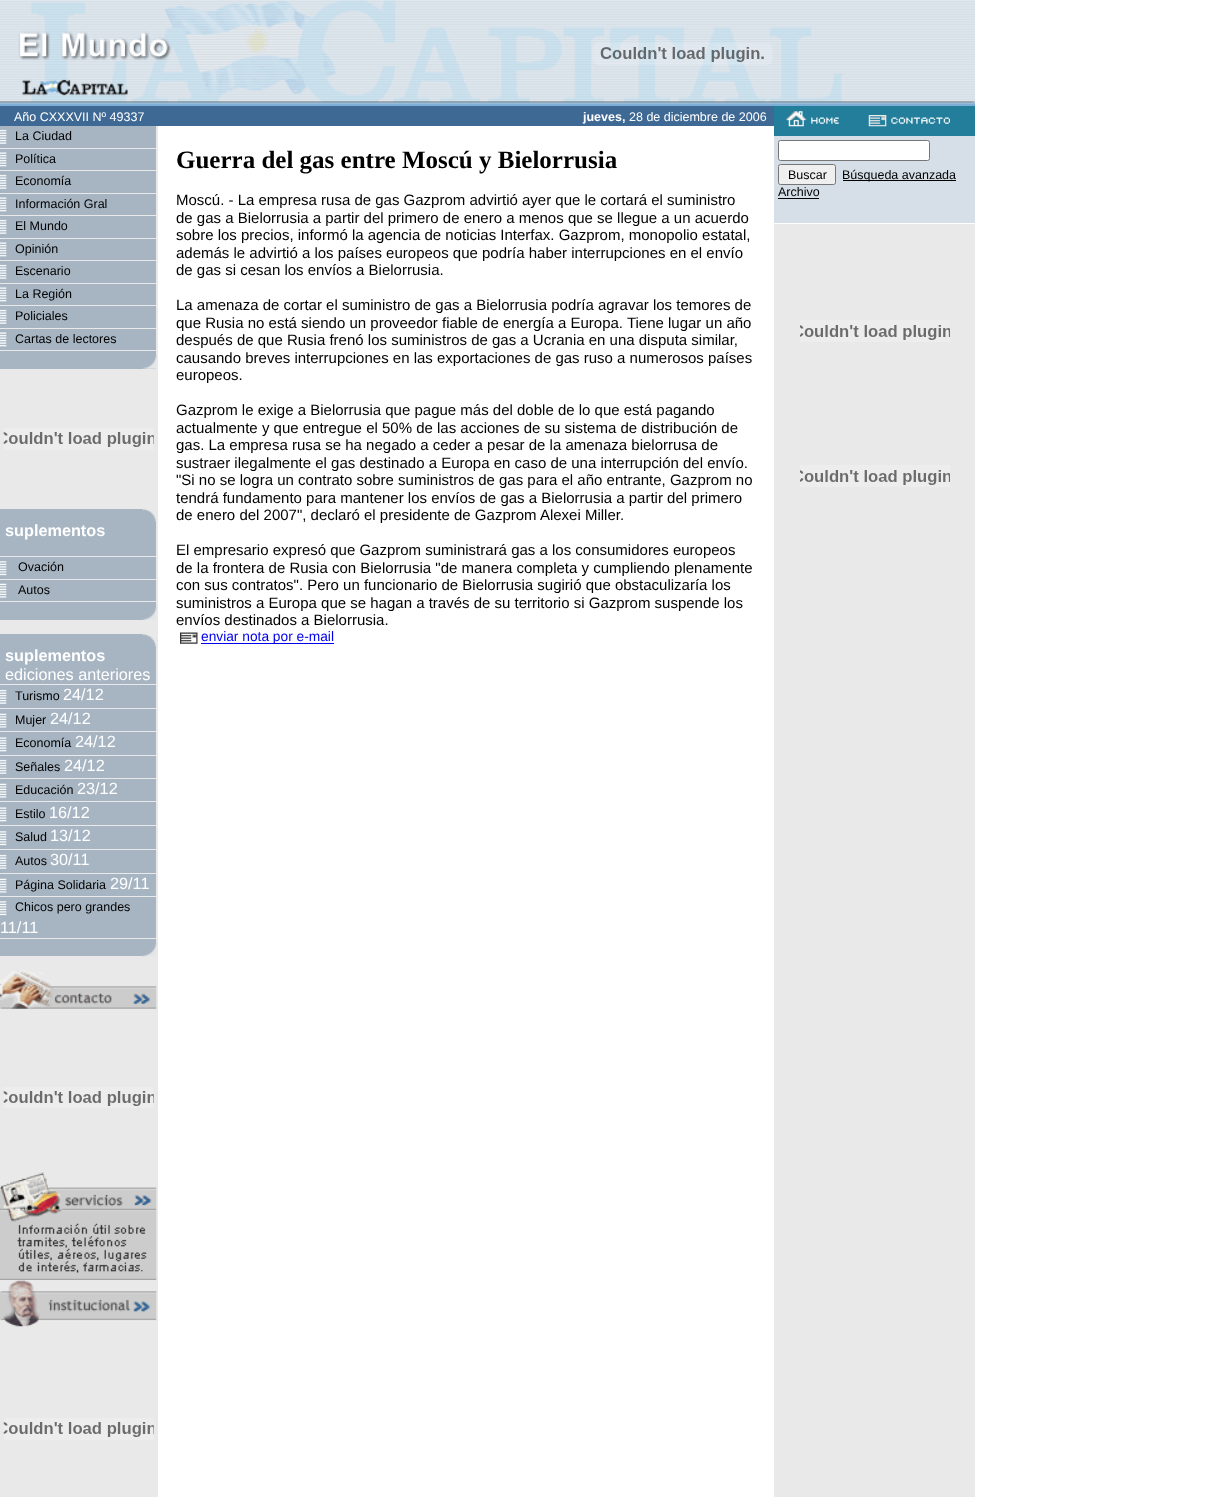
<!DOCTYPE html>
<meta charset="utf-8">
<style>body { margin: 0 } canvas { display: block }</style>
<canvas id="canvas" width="1230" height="1497"></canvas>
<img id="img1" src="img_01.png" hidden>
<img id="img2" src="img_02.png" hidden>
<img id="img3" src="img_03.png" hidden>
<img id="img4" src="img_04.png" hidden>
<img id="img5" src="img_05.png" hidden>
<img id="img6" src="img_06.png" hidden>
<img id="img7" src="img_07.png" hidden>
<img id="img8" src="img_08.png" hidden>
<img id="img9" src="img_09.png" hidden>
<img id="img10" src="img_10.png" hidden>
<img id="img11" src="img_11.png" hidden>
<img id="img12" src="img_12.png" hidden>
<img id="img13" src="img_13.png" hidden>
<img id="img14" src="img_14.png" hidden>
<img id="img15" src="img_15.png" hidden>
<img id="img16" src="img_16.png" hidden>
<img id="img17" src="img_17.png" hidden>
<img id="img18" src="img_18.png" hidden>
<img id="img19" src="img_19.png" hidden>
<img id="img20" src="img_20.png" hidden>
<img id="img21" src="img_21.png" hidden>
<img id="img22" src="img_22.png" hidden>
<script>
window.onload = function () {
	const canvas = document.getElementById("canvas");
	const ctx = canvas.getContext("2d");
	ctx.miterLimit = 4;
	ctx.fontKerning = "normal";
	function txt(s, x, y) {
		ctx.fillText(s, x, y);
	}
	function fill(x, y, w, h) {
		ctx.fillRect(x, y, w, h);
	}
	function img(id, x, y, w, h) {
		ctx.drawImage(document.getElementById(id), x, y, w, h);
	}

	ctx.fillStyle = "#FFFFFF";
	fill(0, 0, 1230, 1497);
	img("img1", 0, 0, 975, 106);
	img("img2", 592, 42, 181, 23);
	ctx.fillStyle = "#E9E9E9";
	fill(0, 126, 158, 1371);
	ctx.fillStyle = "#3E6995";
	fill(0, 106, 774, 20);
	ctx.fillStyle = "#A7B5C3";
	fill(0, 126, 156, 243);
	img("img3", 0, 129, 7, 15);
	ctx.fillStyle = "#E9E9E9";
	fill(0, 148, 156, 1);
	img("img4", 0, 152, 7, 15);
	fill(0, 170, 156, 1);
	img("img3", 0, 174, 7, 15);
	fill(0, 193, 156, 1);
	img("img4", 0, 197, 7, 15);
	fill(0, 215, 156, 1);
	img("img3", 0, 219, 7, 15);
	fill(0, 238, 156, 1);
	img("img4", 0, 242, 7, 15);
	fill(0, 260, 156, 1);
	img("img3", 0, 264, 7, 15);
	fill(0, 283, 156, 1);
	img("img5", 0, 287, 7, 15);
	fill(0, 305, 156, 1);
	img("img3", 0, 309, 7, 15);
	fill(0, 328, 156, 1);
	img("img4", 0, 332, 7, 15);
	fill(0, 350, 156, 1);
	img("img6", 142, 355, 15, 14);
	img("img7", 3, 428, 151, 22);
	ctx.fillStyle = "#A7B5C3";
	fill(0, 509, 156, 111);
	img("img8", 142, 508, 15, 14);
	ctx.fillStyle = "#E9E9E9";
	fill(0, 556, 156, 1);
	img("img9", 0, 561, 7, 15);
	fill(0, 579, 156, 1);
	img("img10", 0, 583, 7, 15);
	fill(0, 601, 156, 1);
	img("img11", 142, 606, 15, 14);
	ctx.fillStyle = "#A7B5C3";
	fill(0, 634, 156, 322);
	img("img8", 142, 633, 15, 14);
	ctx.fillStyle = "#E9E9E9";
	fill(0, 684, 156, 1);
	img("img3", 0, 689, 7, 15);
	fill(0, 708, 156, 1);
	img("img12", 0, 713, 7, 15);
	fill(0, 731, 156, 1);
	img("img4", 0, 737, 7, 15);
	fill(0, 755, 156, 1);
	img("img3", 0, 759, 7, 15);
	fill(0, 778, 156, 1);
	img("img13", 0, 783, 7, 15);
	fill(0, 801, 156, 1);
	img("img4", 0, 807, 7, 15);
	fill(0, 825, 156, 1);
	img("img9", 0, 831, 7, 15);
	fill(0, 849, 156, 1);
	img("img3", 0, 854, 7, 15);
	fill(0, 873, 156, 1);
	img("img12", 0, 878, 7, 15);
	fill(0, 896, 156, 1);
	img("img9", 0, 901, 7, 15);
	fill(0, 938, 156, 1);
	img("img14", 142, 942, 15, 15);
	img("img15", 0, 970, 157, 39);
	img("img16", 3, 1087, 151, 21);
	img("img17", 0, 1172, 157, 108);
	img("img18", 0, 1280, 157, 47);
	img("img7", 3, 1418, 151, 22);
	img("img19", 180, 632, 18, 12);
	ctx.fillStyle = "#0000EE";
	fill(201, 643, 133, 1);
	ctx.fillStyle = "#E9E9E9";
	fill(774, 224, 201, 1273);
	ctx.fillStyle = "#237E9C";
	fill(774, 106, 201, 30);
	img("img20", 786, 111, 53, 16);
	img("img21", 868, 115, 82, 12);
	ctx.fillStyle = "#D6DFE7";
	fill(774, 136, 201, 87);
	ctx.fillStyle = "#FFFFFF";
	ctx.beginPath();
	ctx.roundRect(778.5, 140.5, 151, 20, 2);
	ctx.fill();
	ctx.strokeStyle = "#767676";
	ctx.stroke();
	ctx.fillStyle = "#EFEFEF";
	ctx.beginPath();
	ctx.roundRect(778.5, 164.5, 57, 20, 2);
	ctx.fill();
	ctx.stroke();
	ctx.fillStyle = "#000000";
	fill(843, 180, 113, 1);
	fill(778, 198, 41, 1);
	img("img22", 800, 320, 150, 22);
	img("img22", 800, 465, 150, 22);
	ctx.font = "12.5px Liberation Sans";
	ctx.fillStyle = "#FFFFFF";
	txt("Año CXXXVII Nº 49337", 14, 121);
	ctx.fillStyle = "#000000";
	txt("La Ciudad", 15, 140);
	txt("Política", 15, 163);
	txt("Economía", 15, 185);
	txt("Información Gral", 15, 208);
	txt("El Mundo", 15, 230);
	txt("Opinión", 15, 253);
	txt("Escenario", 15, 275);
	txt("La Región", 15, 298);
	txt("Policiales", 15, 320);
	txt("Cartas de lectores", 15, 343);
	ctx.font = "bold 16.25px Liberation Sans";
	ctx.fillStyle = "#FFFFFF";
	txt("suplementos", 5, 536);
	ctx.font = "12.5px Liberation Sans";
	ctx.fillStyle = "#000000";
	txt("Ovación", 18, 571);
	txt("Autos", 18, 594);
	ctx.font = "bold 16.25px Liberation Sans";
	ctx.fillStyle = "#FFFFFF";
	txt("suplementos", 5, 661);
	ctx.font = "16.25px Liberation Sans";
	txt("ediciones anteriores", 5, 680);
	ctx.font = "12.5px Liberation Sans";
	ctx.fillStyle = "#000000";
	txt("Turismo", 15, 700);
	ctx.font = "16.25px Liberation Sans";
	ctx.fillStyle = "#FFFFFF";
	txt("24/12", 63, 700);
	ctx.font = "12.5px Liberation Sans";
	ctx.fillStyle = "#000000";
	txt("Mujer", 15, 724);
	ctx.font = "16.25px Liberation Sans";
	ctx.fillStyle = "#FFFFFF";
	txt("24/12", 50, 724);
	ctx.font = "12.5px Liberation Sans";
	ctx.fillStyle = "#000000";
	txt("Economía", 15, 747);
	ctx.font = "16.25px Liberation Sans";
	ctx.fillStyle = "#FFFFFF";
	txt("24/12", 75, 747);
	ctx.font = "12.5px Liberation Sans";
	ctx.fillStyle = "#000000";
	txt("Señales", 15, 771);
	ctx.font = "16.25px Liberation Sans";
	ctx.fillStyle = "#FFFFFF";
	txt("24/12", 64, 771);
	ctx.font = "12.5px Liberation Sans";
	ctx.fillStyle = "#000000";
	txt("Educación", 15, 794);
	ctx.font = "16.25px Liberation Sans";
	ctx.fillStyle = "#FFFFFF";
	txt("23/12", 77, 794);
	ctx.font = "12.5px Liberation Sans";
	ctx.fillStyle = "#000000";
	txt("Estilo", 15, 818);
	ctx.font = "16.25px Liberation Sans";
	ctx.fillStyle = "#FFFFFF";
	txt("16/12", 49, 818);
	ctx.font = "12.5px Liberation Sans";
	ctx.fillStyle = "#000000";
	txt("Salud", 15, 841);
	ctx.font = "16.25px Liberation Sans";
	ctx.fillStyle = "#FFFFFF";
	txt("13/12", 50, 841);
	ctx.font = "12.5px Liberation Sans";
	ctx.fillStyle = "#000000";
	txt("Autos", 15, 865);
	ctx.font = "16.25px Liberation Sans";
	ctx.fillStyle = "#FFFFFF";
	txt("30/11", 50, 865);
	ctx.font = "12.5px Liberation Sans";
	ctx.fillStyle = "#000000";
	txt("Página Solidaria", 15, 889);
	ctx.font = "16.25px Liberation Sans";
	ctx.fillStyle = "#FFFFFF";
	txt("29/11", 110, 889);
	ctx.font = "12.5px Liberation Sans";
	ctx.fillStyle = "#000000";
	txt("Chicos pero grandes", 15, 911);
	ctx.font = "16.25px Liberation Sans";
	ctx.fillStyle = "#FFFFFF";
	txt("11/11", 0, 933);
	ctx.font = "bold 12.5px Liberation Sans";
	txt("jueves,", 583, 121);
	ctx.font = "12.5px Liberation Sans";
	txt("28 de diciembre de 2006", 629, 121);
	ctx.font = "bold 25px Liberation Serif";
	ctx.fillStyle = "#000000";
	txt("Guerra del gas entre Moscú y Bielorrusia", 176, 168);
	ctx.font = "15px Liberation Sans";
	txt("Moscú. - La empresa rusa de gas Gazprom advirtió ayer que le cortará el suministro", 176, 205);
	txt("de gas a Bielorrusia a partir del primero de enero a menos que se llegue a un acuerdo", 176, 223);
	txt("sobre los precios, informó la agencia de noticias Interfax. Gazprom, monopolio estatal,", 176, 240);
	txt("además le advirtió a los países europeos que podría haber interrupciones en el envío", 176, 258);
	txt("de gas si cesan los envíos a Bielorrusia.", 176, 275);
	txt("La amenaza de cortar el suministro de gas a Bielorrusia podría agravar los temores de", 176, 310);
	txt("que Rusia no está siendo un proveedor fiable de energía a Europa. Tiene lugar un año", 176, 328);
	txt("después de que Rusia frenó los suministros de gas a Ucrania en una disputa similar,", 176, 345);
	txt("causando breves interrupciones en las exportaciones de gas ruso a numerosos países", 176, 363);
	txt("europeos.", 176, 380);
	txt("Gazprom le exige a Bielorrusia que pague más del doble de lo que está pagando", 176, 415);
	txt("actualmente y que entregue el 50% de las acciones de su sistema de distribución de", 176, 433);
	txt("gas. La empresa rusa se ha negado a ceder a pesar de la amenaza bielorrusa de", 176, 450);
	txt("sustraer ilegalmente el gas destinado a Europa en caso de una interrupción del envío.", 176, 468);
	txt("\"Si no se logra un contrato sobre suministros de gas para el año entrante, Gazprom no", 176, 485);
	txt("tendrá fundamento para mantener los envíos de gas a Bielorrusia a partir del primero", 176, 503);
	txt("de enero del 2007\", declaró el presidente de Gazprom Alexei Miller.", 176, 520);
	txt("El empresario expresó que Gazprom suministrará gas a los consumidores europeos", 176, 555);
	txt("de la frontera de Rusia con Bielorrusia \"de manera completa y cumpliendo plenamente", 176, 573);
	txt("con sus contratos\". Pero un funcionario de Bielorrusia sugirió que obstaculizaría los", 176, 590);
	txt("suministros a Europa que se hagan a través de su territorio si Gazprom suspende los", 176, 608);
	txt("envíos destinados a Bielorrusia.", 176, 625);
	ctx.font = "13.75px Liberation Sans";
	ctx.fillStyle = "#0000EE";
	txt("enviar nota por e-mail", 201, 641);
	ctx.font = "12.5px Liberation Sans";
	ctx.fillStyle = "#000000";
	txt("Buscar", 788, 179);
	txt("Búsqueda avanzada", 842, 179);
	txt("Archivo", 778, 196);
};
</script>
